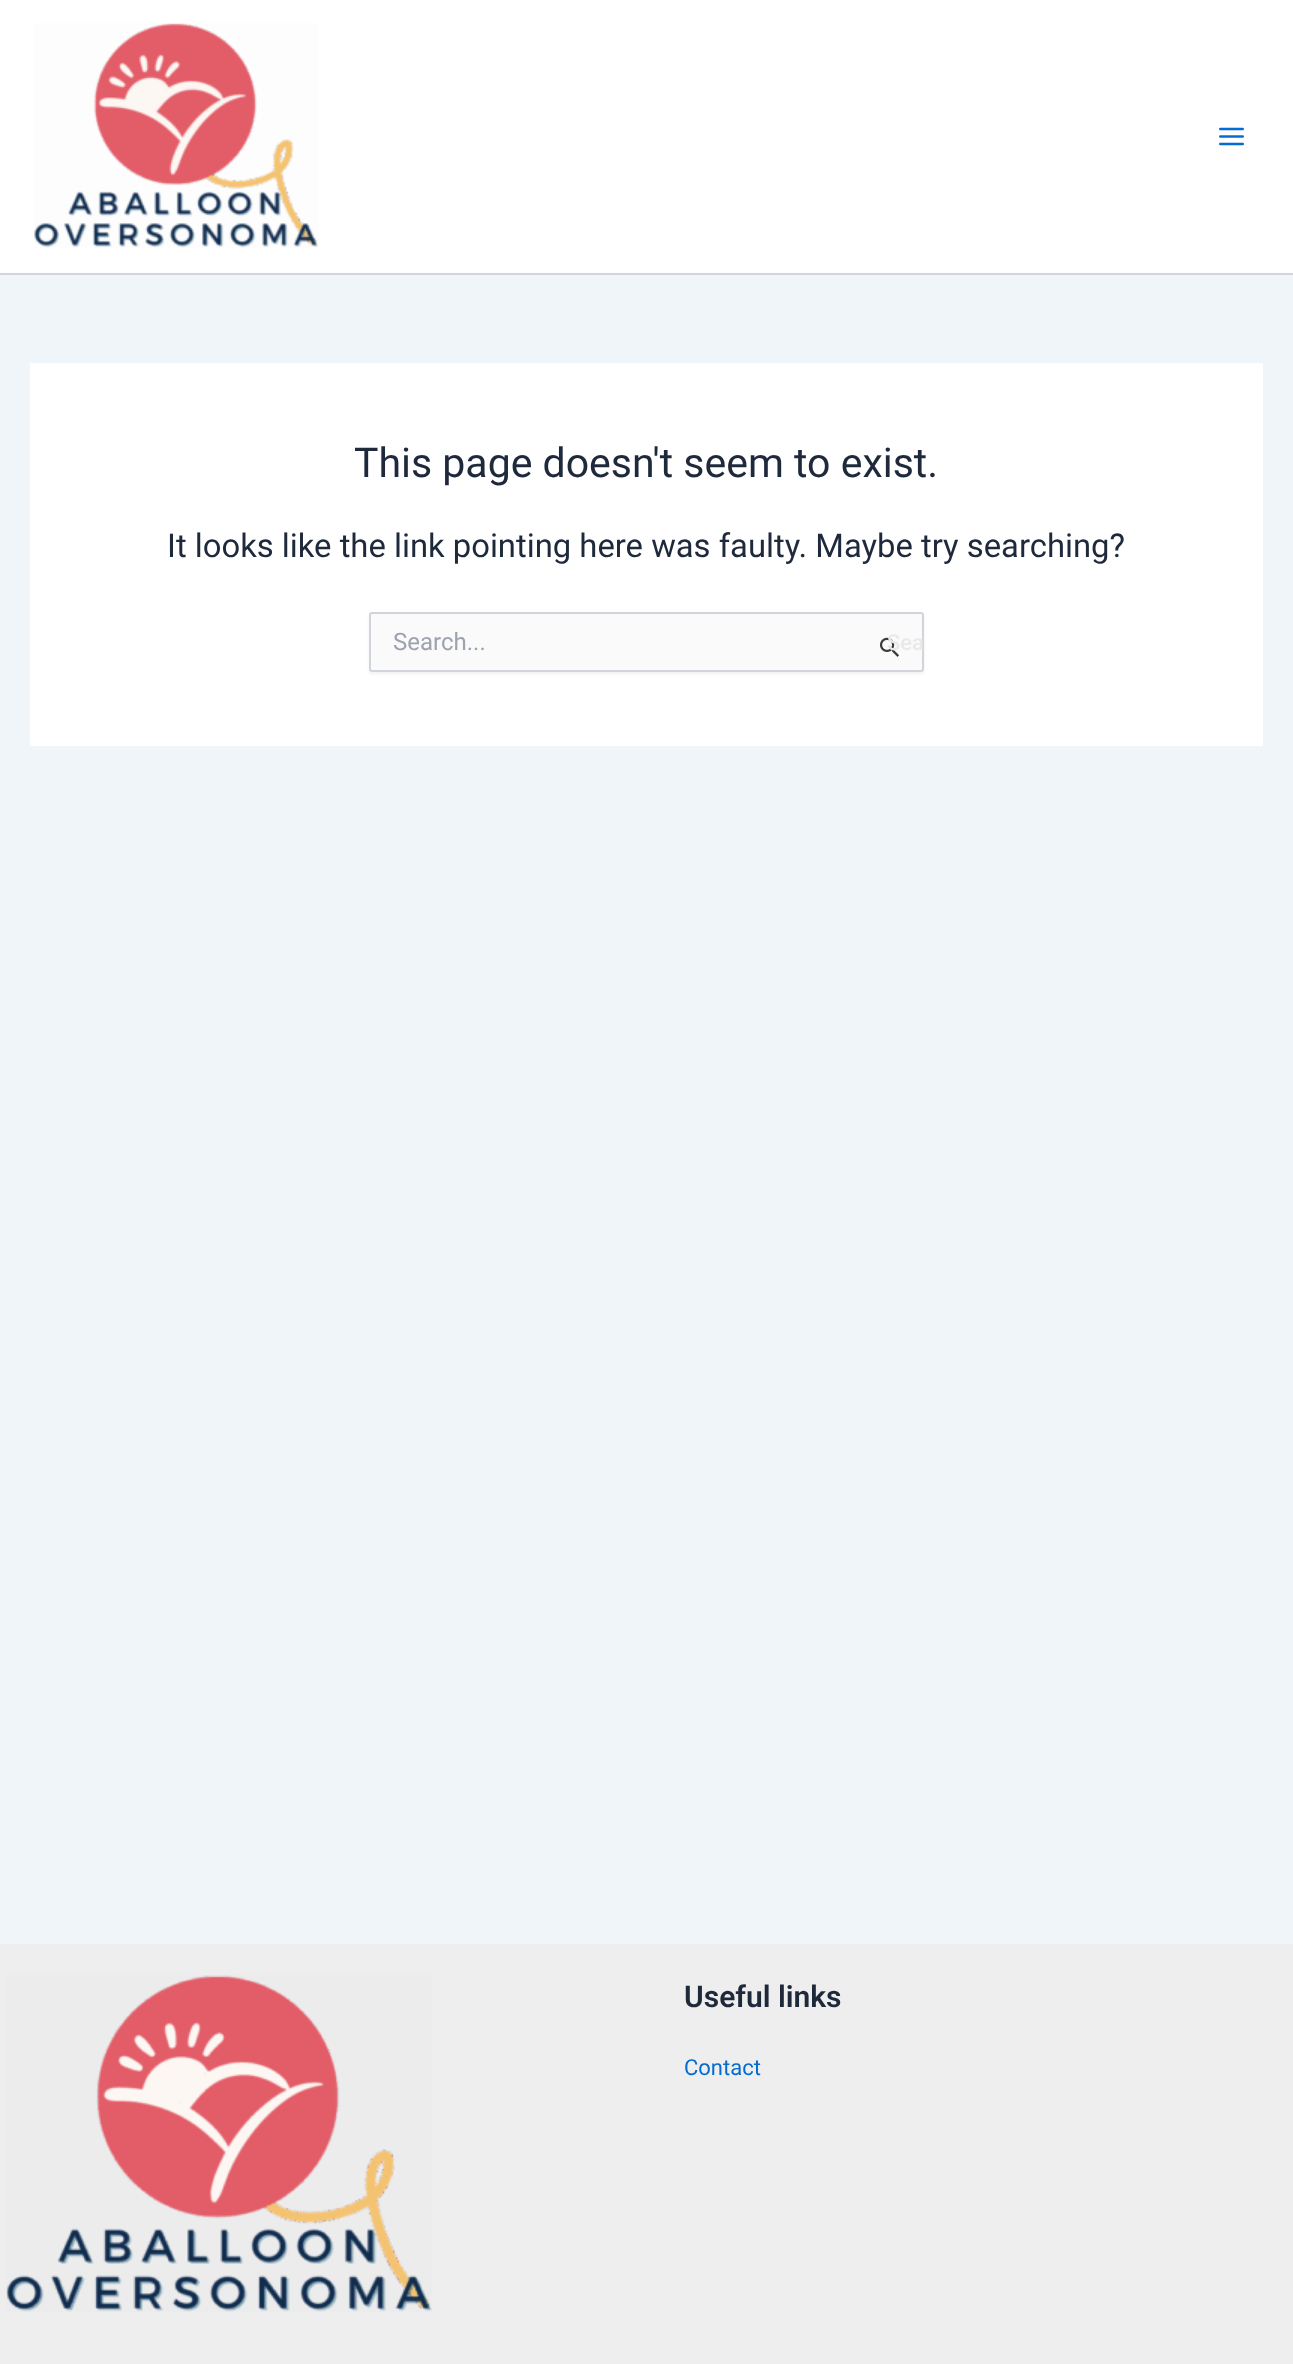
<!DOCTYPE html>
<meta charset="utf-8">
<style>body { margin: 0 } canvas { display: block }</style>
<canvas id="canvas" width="1293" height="2364"></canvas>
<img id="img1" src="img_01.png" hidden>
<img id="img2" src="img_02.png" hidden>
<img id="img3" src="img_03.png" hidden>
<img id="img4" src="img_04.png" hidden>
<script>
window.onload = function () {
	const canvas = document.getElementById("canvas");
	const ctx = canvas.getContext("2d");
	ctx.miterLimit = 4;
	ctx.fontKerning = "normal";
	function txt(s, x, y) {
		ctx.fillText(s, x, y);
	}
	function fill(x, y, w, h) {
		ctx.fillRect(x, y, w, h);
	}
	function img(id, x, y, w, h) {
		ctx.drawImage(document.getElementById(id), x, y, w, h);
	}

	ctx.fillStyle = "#F0F5FA";
	fill(0, 0, 1293, 2364);
	ctx.fillStyle = "#FFFFFF";
	fill(0, 0, 1293, 273);
	ctx.fillStyle = "#D1D5DB";
	fill(0, 273, 1293, 2);
	img("img1", 34, 23, 285, 225);
	img("img2", 1219, 127, 25, 19);
	ctx.fillStyle = "#FFFFFF";
	fill(30, 363, 1233, 383);
	ctx.fillStyle = "rgba(0, 0, 0, 0.05)";
	ctx.filter = "blur(1.5px)";
	ctx.beginPath();
	ctx.roundRect(369, 614, 555, 60, 3);
	ctx.fill();
	ctx.filter = "none";
	ctx.fillStyle = "#FAFAFA";
	ctx.beginPath();
	ctx.roundRect(370, 613, 553, 58, 2);
	ctx.fill();
	ctx.strokeStyle = "#D1D5DB";
	ctx.lineWidth = 2;
	ctx.stroke();
	img("img3", 880, 637, 19, 20);
	ctx.fillStyle = "#EEEEEE";
	fill(0, 1944, 1293, 420);
	img("img4", 6, 1975, 426, 337);
	ctx.font = "41px Roboto";
	ctx.fillStyle = "#1E293B";
	txt("This page doesn't seem to exist.", 354, 477);
	ctx.font = "32.8px Roboto";
	txt("It looks like the link pointing here was faulty. Maybe try searching?", 167, 557);
	ctx.font = "24px Roboto";
	ctx.fillStyle = "#9CA3AF";
	txt("Search...", 393, 650);
	ctx.font = "500 22px Roboto";
	ctx.fillStyle = "#E9E9E9";
	txt("Sea", 887, 650);
	ctx.font = "600 30px Roboto";
	ctx.fillStyle = "#1E293B";
	txt("Useful links", 684, 2007);
	ctx.font = "22px Roboto";
	ctx.fillStyle = "#046BD2";
	txt("Contact", 684, 2075);
};
</script>
